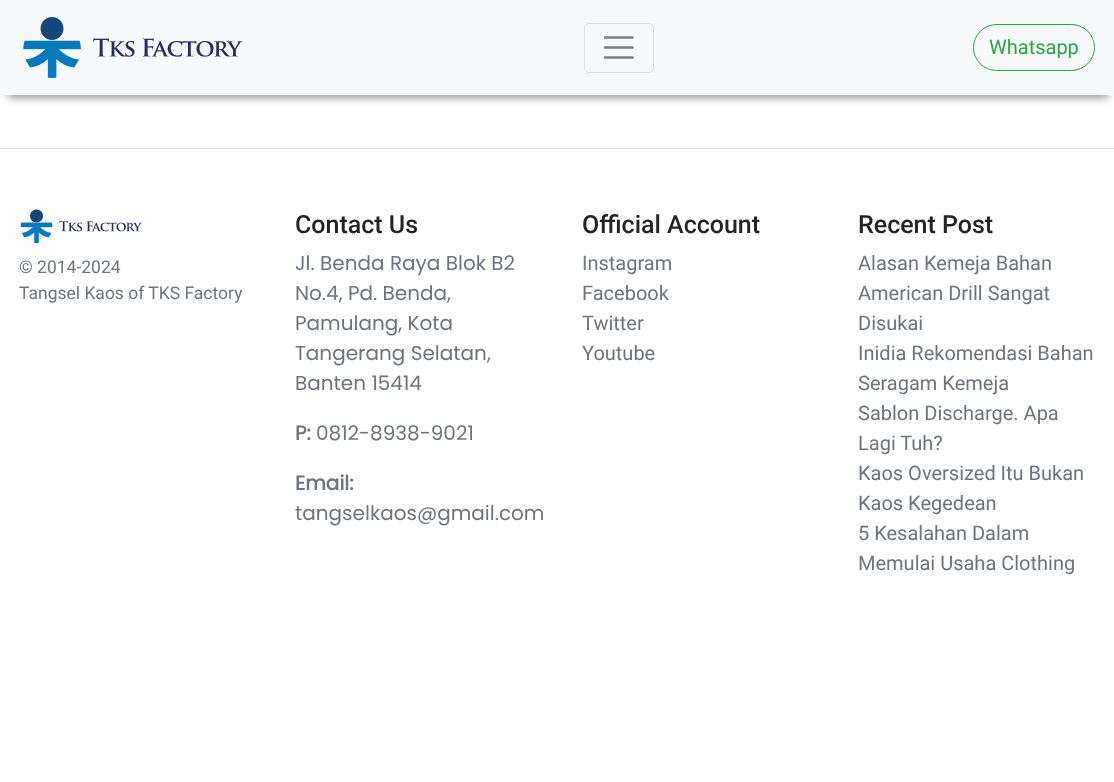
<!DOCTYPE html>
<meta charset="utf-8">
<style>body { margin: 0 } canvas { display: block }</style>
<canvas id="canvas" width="1114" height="782"></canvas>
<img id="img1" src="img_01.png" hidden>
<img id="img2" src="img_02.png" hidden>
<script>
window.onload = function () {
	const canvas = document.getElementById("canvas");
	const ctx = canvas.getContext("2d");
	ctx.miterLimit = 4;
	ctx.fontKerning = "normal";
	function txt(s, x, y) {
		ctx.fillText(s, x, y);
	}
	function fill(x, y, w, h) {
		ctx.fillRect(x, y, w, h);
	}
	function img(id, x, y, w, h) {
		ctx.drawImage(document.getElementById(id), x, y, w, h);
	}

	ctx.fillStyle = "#FFFFFF";
	fill(0, 0, 1114, 782);
	ctx.fillStyle = "#999999";
	ctx.filter = "blur(4px)";
	ctx.beginPath();
	ctx.rect(8, 18, 1100, 80);
	ctx.fill();
	ctx.filter = "none";
	ctx.fillStyle = "#F8F9FA";
	fill(0, 0, 1114, 95);
	img("img1", 23, 17, 220, 61);
	ctx.beginPath();
	ctx.roundRect(584.5, 23.5, 69, 49, 4.5);
	ctx.strokeStyle = "#DFE0E1";
	ctx.stroke();
	ctx.beginPath();
	ctx.moveTo(605, 37.5);
	ctx.lineTo(632.5, 37.5);
	ctx.moveTo(605, 47.5);
	ctx.lineTo(632.5, 47.5);
	ctx.moveTo(605, 57.5);
	ctx.lineTo(632.5, 57.5);
	ctx.strokeStyle = "#7C7D7D";
	ctx.lineWidth = 2.5;
	ctx.lineCap = "round";
	ctx.stroke();
	ctx.beginPath();
	ctx.roundRect(973.5, 24.5, 121, 46, 23);
	ctx.strokeStyle = "#28A745";
	ctx.lineWidth = 1;
	ctx.stroke();
	ctx.fillStyle = "#DEE2E6";
	fill(0, 148, 1114, 1);
	img("img2", 20, 209, 122, 35);
	ctx.font = "20px Roboto";
	ctx.fillStyle = "#28A745";
	txt("Whatsapp", 989, 54);
	ctx.font = "17.5px Roboto";
	ctx.fillStyle = "#6C757D";
	txt("© 2014-2024", 19, 273);
	txt("Tangsel Kaos of TKS Factory", 19, 299);
	ctx.font = "500 25px Roboto";
	ctx.fillStyle = "#212529";
	txt("Contact Us", 295, 233);
	ctx.font = "20px Poppins";
	ctx.fillStyle = "#6C757D";
	txt("Jl. Benda Raya Blok B2", 295, 270);
	txt("No.4, Pd. Benda,", 295, 300);
	txt("Pamulang, Kota", 295, 330);
	txt("Tangerang Selatan,", 295, 360);
	txt("Banten 15414", 295, 390);
	ctx.font = "bold 20px Poppins";
	txt("P:", 295, 440);
	ctx.font = "20px Poppins";
	txt("0812-8938-9021", 316, 440);
	ctx.font = "bold 20px Poppins";
	txt("Email:", 295, 490);
	ctx.font = "20px Poppins";
	txt("tangselkaos@gmail.com", 295, 520);
	ctx.font = "500 25px Roboto";
	ctx.fillStyle = "#212529";
	txt("Official Account", 582, 233);
	ctx.font = "20px Roboto";
	ctx.fillStyle = "#6C757D";
	txt("Instagram", 582, 270);
	txt("Facebook", 582, 300);
	txt("Twitter", 582, 330);
	txt("Youtube", 582, 360);
	ctx.font = "500 25px Roboto";
	ctx.fillStyle = "#212529";
	txt("Recent Post", 858, 233);
	ctx.font = "20px Roboto";
	ctx.fillStyle = "#6C757D";
	txt("Alasan Kemeja Bahan", 858, 270);
	txt("American Drill Sangat", 858, 300);
	txt("Disukai", 858, 330);
	txt("Inidia Rekomendasi Bahan", 858, 360);
	txt("Seragam Kemeja", 858, 390);
	txt("Sablon Discharge. Apa", 858, 420);
	txt("Lagi Tuh?", 858, 450);
	txt("Kaos Oversized Itu Bukan", 858, 480);
	txt("Kaos Kegedean", 858, 510);
	txt("5 Kesalahan Dalam", 858, 540);
	txt("Memulai Usaha Clothing", 858, 570);
};
</script>
